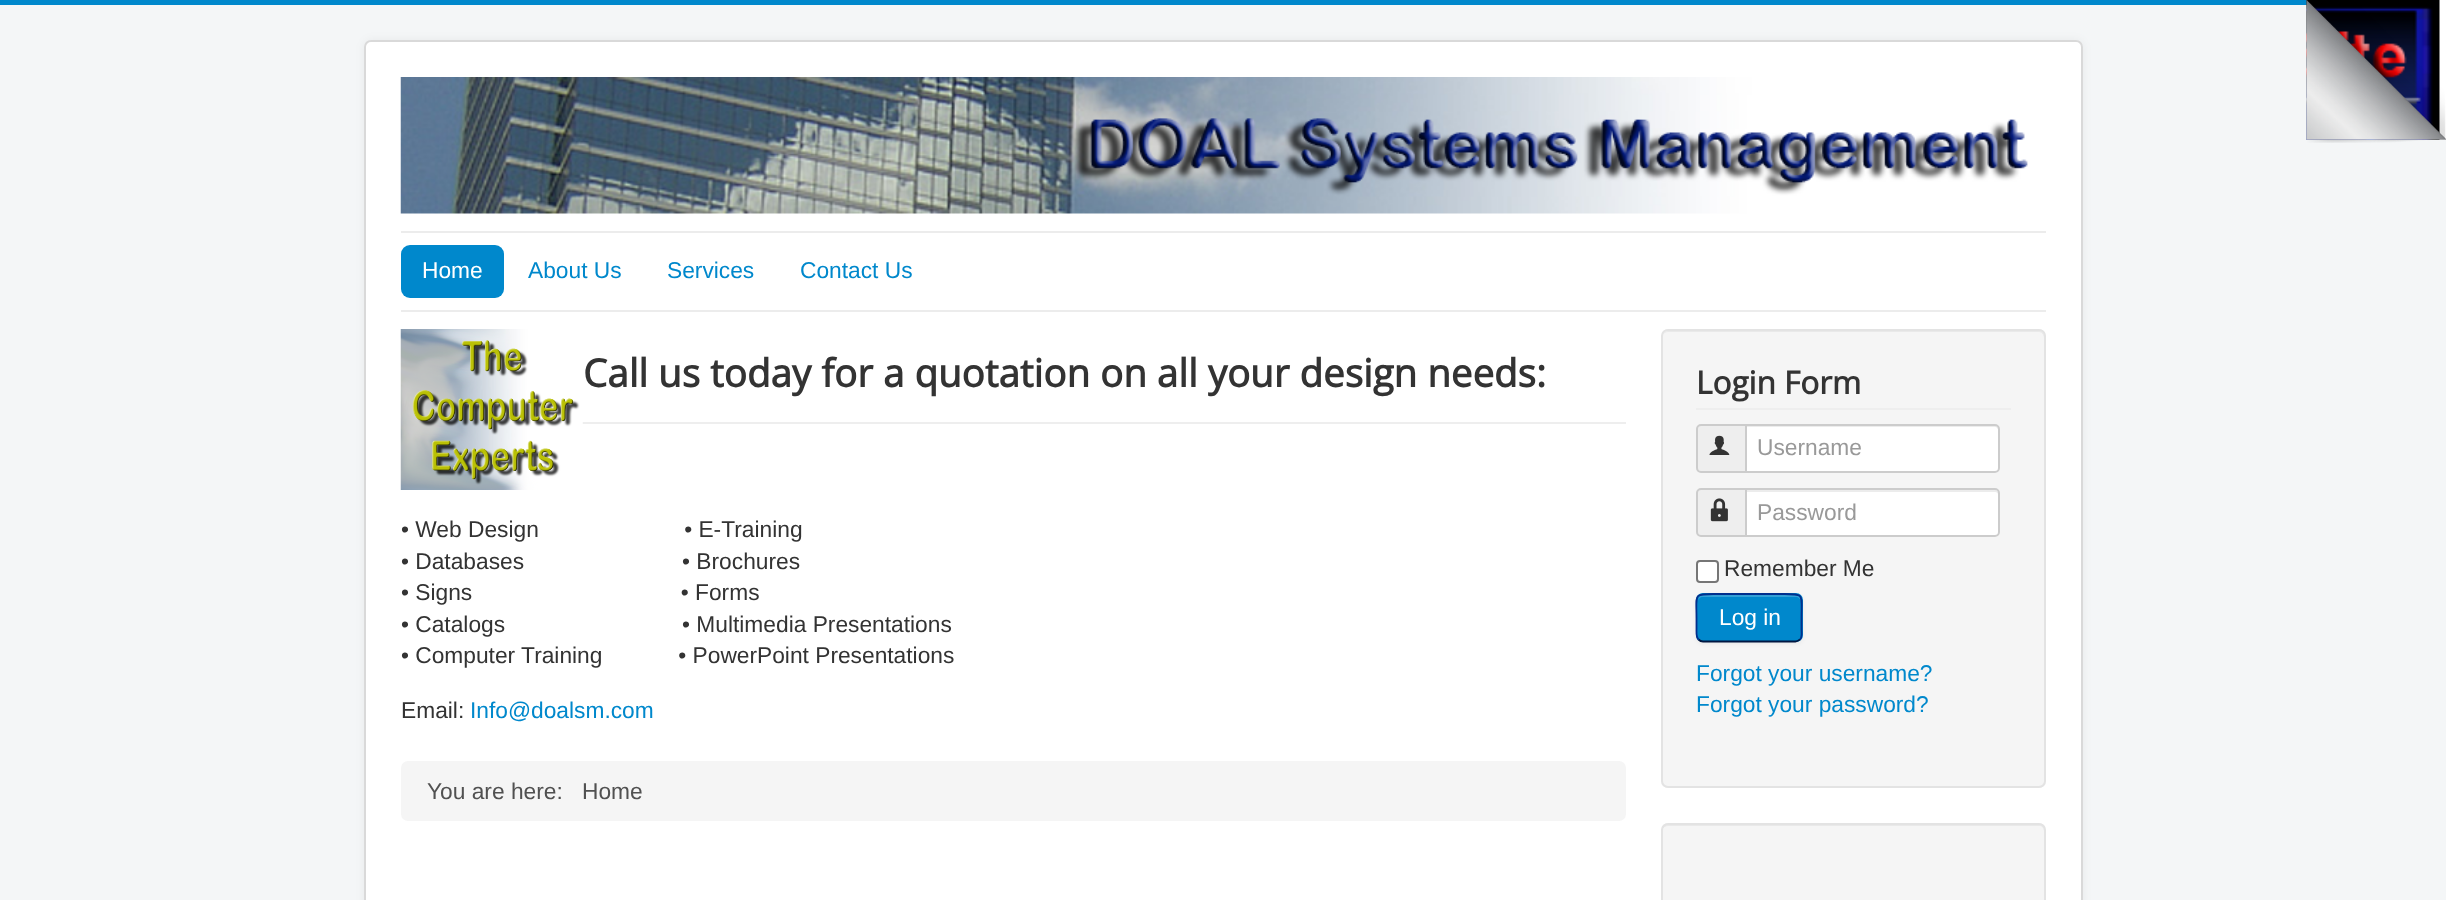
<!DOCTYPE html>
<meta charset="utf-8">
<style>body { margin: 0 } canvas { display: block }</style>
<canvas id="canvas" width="2446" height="900"></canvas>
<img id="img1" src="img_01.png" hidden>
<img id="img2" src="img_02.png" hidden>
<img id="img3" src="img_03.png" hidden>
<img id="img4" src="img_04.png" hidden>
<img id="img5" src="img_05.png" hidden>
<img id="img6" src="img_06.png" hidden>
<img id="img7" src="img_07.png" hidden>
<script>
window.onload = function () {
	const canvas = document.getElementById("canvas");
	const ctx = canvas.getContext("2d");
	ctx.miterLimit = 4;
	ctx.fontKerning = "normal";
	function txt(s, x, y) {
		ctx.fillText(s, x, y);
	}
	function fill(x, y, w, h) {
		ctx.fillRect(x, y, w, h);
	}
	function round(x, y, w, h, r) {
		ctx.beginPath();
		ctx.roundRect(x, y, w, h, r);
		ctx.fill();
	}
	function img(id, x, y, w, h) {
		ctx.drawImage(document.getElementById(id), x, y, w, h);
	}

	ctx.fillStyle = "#F4F6F7";
	fill(0, 0, 2446, 900);
	ctx.fillStyle = "#0088CC";
	fill(0, 0, 2307, 5);
	ctx.fillStyle = "#FFFFFF";
	fill(2439, 0, 7, 140);
	img("img1", 2306, 0, 134, 140);
	img("img2", 2306, 0, 140, 143);
	img("img3", 2306, 0, 140, 139);
	ctx.fillStyle = "rgba(0, 0, 0, 0.05)";
	ctx.filter = "blur(5px)";
	ctx.beginPath();
	ctx.roundRect(364, 40, 1719, 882, 7);
	ctx.fill();
	ctx.filter = "none";
	ctx.fillStyle = "#FFFFFF";
	round(364, 40, 1719, 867, 7);
	ctx.beginPath();
	ctx.roundRect(365, 41, 1717, 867, 6);
	ctx.strokeStyle = "rgba(0, 0, 0, 0.15)";
	ctx.lineWidth = 2;
	ctx.stroke();
	img("img4", 400, 77, 1628, 137);
	ctx.fillStyle = "#ECECEC";
	fill(401, 231, 1645, 2);
	fill(401, 310, 1645, 2);
	ctx.fillStyle = "#0088CC";
	round(401, 245, 103, 53, 9);
	ctx.fillStyle = "#EEEEEE";
	fill(582, 422, 1044, 2);
	img("img5", 400, 329, 183, 161);
	ctx.fillStyle = "#F5F5F5";
	round(401, 761, 1225, 60, 7);
	round(1661, 329, 385, 459, 7);
	ctx.fillStyle = "#E9E9E9";
	ctx.beginPath();
	ctx.moveTo(1668, 332);
	ctx.lineTo(2039, 332);
	ctx.bezierCurveTo(2042, 332, 2044, 335, 2044, 338);
	ctx.lineTo(2044, 336);
	ctx.bezierCurveTo(2044, 333, 2042, 331, 2039, 331);
	ctx.lineTo(1668, 331);
	ctx.bezierCurveTo(1666, 331, 1664, 333, 1663, 335);
	ctx.bezierCurveTo(1664, 333, 1666, 332, 1668, 332);
	ctx.closePath();
	ctx.fill();
	ctx.beginPath();
	ctx.roundRect(1662, 330, 383, 457, 6);
	ctx.strokeStyle = "#E3E3E3";
	ctx.stroke();
	ctx.fillStyle = "#EEEEEE";
	fill(1696, 408, 315, 2);
	ctx.beginPath();
	ctx.roundRect(1697, 425, 49, 47, [4, 0, 0, 4]);
	ctx.fill();
	ctx.strokeStyle = "#CCCCCC";
	ctx.stroke();
	img("img6", 1709, 435, 21, 20);
	ctx.fillStyle = "#FFFFFF";
	ctx.beginPath();
	ctx.roundRect(1745, 424, 255, 49, [0, 5, 5, 0]);
	ctx.fill();
	ctx.fillStyle = "#ECECEC";
	ctx.beginPath();
	ctx.moveTo(1747, 425);
	ctx.lineTo(1747, 427);
	ctx.lineTo(1995, 427);
	ctx.bezierCurveTo(1997, 427, 1998, 429, 1998, 430);
	ctx.lineTo(1998, 470);
	ctx.bezierCurveTo(1999, 469, 1999, 468, 1999, 467);
	ctx.lineTo(1999, 429);
	ctx.bezierCurveTo(1999, 427, 1997, 425, 1995, 425);
	ctx.closePath();
	ctx.fill();
	ctx.beginPath();
	ctx.roundRect(1746, 425, 253, 47, [0, 4, 4, 0]);
	ctx.stroke();
	ctx.fillStyle = "#EEEEEE";
	ctx.beginPath();
	ctx.roundRect(1697, 489, 49, 47, [4, 0, 0, 4]);
	ctx.fill();
	ctx.stroke();
	img("img7", 1710, 498, 18, 24);
	ctx.fillStyle = "#FFFFFF";
	ctx.beginPath();
	ctx.roundRect(1745, 488, 255, 49, [0, 5, 5, 0]);
	ctx.fill();
	ctx.fillStyle = "#ECECEC";
	ctx.beginPath();
	ctx.moveTo(1747, 490);
	ctx.lineTo(1747, 492);
	ctx.lineTo(1995, 492);
	ctx.bezierCurveTo(1997, 492, 1998, 493, 1998, 495);
	ctx.lineTo(1998, 535);
	ctx.bezierCurveTo(1999, 534, 1999, 533, 1999, 532);
	ctx.lineTo(1999, 494);
	ctx.bezierCurveTo(1999, 492, 1997, 490, 1995, 490);
	ctx.closePath();
	ctx.fill();
	ctx.beginPath();
	ctx.roundRect(1746, 489, 253, 47, [0, 4, 4, 0]);
	ctx.stroke();
	ctx.fillStyle = "#FFFFFF";
	ctx.beginPath();
	ctx.roundRect(1697, 561, 21, 21, 3);
	ctx.fill();
	ctx.strokeStyle = "#767676";
	ctx.stroke();
	ctx.fillStyle = "rgba(0, 0, 0, 0.05)";
	ctx.filter = "blur(2px)";
	ctx.beginPath();
	ctx.roundRect(1696, 595, 107, 49, 7);
	ctx.fill();
	ctx.filter = "none";
	ctx.fillStyle = "#0088CC";
	round(1696, 593, 107, 49, 7);
	ctx.fillStyle = "#33A0D6";
	ctx.beginPath();
	ctx.moveTo(1703, 597);
	ctx.lineTo(1796, 597);
	ctx.bezierCurveTo(1798, 597, 1801, 599, 1801, 602);
	ctx.bezierCurveTo(1801, 591, 1789, 595, 1780, 595);
	ctx.lineTo(1718, 595);
	ctx.bezierCurveTo(1710, 595, 1698, 591, 1698, 602);
	ctx.bezierCurveTo(1698, 599, 1700, 597, 1703, 597);
	ctx.closePath();
	ctx.fill();
	ctx.beginPath();
	ctx.moveTo(1800, 639.5);
	ctx.bezierCurveTo(1798.5, 640.5, 1797, 641.5, 1795.5, 641.5);
	ctx.lineTo(1703, 641.5);
	ctx.bezierCurveTo(1701, 641.5, 1699.5, 640.5, 1698.5, 639.5);
	ctx.strokeStyle = "#001641";
	ctx.lineWidth = 1.8;
	ctx.stroke();
	ctx.beginPath();
	ctx.moveTo(1698.5, 639.5);
	ctx.bezierCurveTo(1696, 637, 1696.5, 632.5, 1696.5, 629.5);
	ctx.lineTo(1696.5, 618);
	ctx.bezierCurveTo(1696.5, 592.5, 1692.5, 594, 1718, 594);
	ctx.lineTo(1780, 594);
	ctx.bezierCurveTo(1805.5, 594, 1801.5, 592.5, 1801.5, 618);
	ctx.lineTo(1801.5, 629.5);
	ctx.bezierCurveTo(1801.5, 632.5, 1802.5, 637, 1800, 639.5);
	ctx.strokeStyle = "#002F8D";
	ctx.stroke();
	ctx.fillStyle = "#F5F5F5";
	round(1661, 823, 385, 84, 7);
	ctx.fillStyle = "#E9E9E9";
	ctx.beginPath();
	ctx.moveTo(1668, 826);
	ctx.lineTo(2039, 826);
	ctx.bezierCurveTo(2042, 826, 2044, 828, 2044, 831);
	ctx.lineTo(2044, 829);
	ctx.bezierCurveTo(2044, 826, 2042, 824, 2039, 824);
	ctx.lineTo(1668, 824);
	ctx.bezierCurveTo(1666, 824, 1663, 826, 1663, 828);
	ctx.bezierCurveTo(1664, 827, 1666, 826, 1668, 826);
	ctx.closePath();
	ctx.fill();
	ctx.beginPath();
	ctx.roundRect(1662, 824, 383, 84, 6);
	ctx.strokeStyle = "#E3E3E3";
	ctx.lineWidth = 2;
	ctx.stroke();
	ctx.font = "22.75px Liberation Sans";
	ctx.fillStyle = "#FFFFFF";
	txt("Home", 422, 278);
	ctx.fillStyle = "#0088CC";
	txt("About Us", 528, 278);
	txt("Services", 667, 278);
	txt("Contact Us", 800, 278);
	ctx.font = "bold 38.5px Open Sans";
	ctx.fillStyle = "#333333";
	txt("Call us today for a quotation on all your design needs:", 583, 387);
	ctx.font = "22.75px Liberation Sans";
	txt("• Web Design                       • E-Training", 401, 537);
	txt("• Databases                         • Brochures", 401, 569);
	txt("• Signs                                 • Forms", 401, 600);
	txt("• Catalogs                            • Multimedia Presentations", 401, 632);
	txt("• Computer Training            • PowerPoint Presentations", 401, 663);
	txt("Email:", 401, 718);
	ctx.fillStyle = "#0088CC";
	txt("Info@doalsm.com", 470, 718);
	ctx.fillStyle = "#515151";
	txt("You are here:", 427, 799);
	txt("Home", 582, 799);
	ctx.font = "bold 31.5px Open Sans";
	ctx.fillStyle = "#333333";
	txt("Login Form", 1696, 394);
	ctx.font = "22.75px Liberation Sans";
	ctx.fillStyle = "#999999";
	txt("Username", 1757, 455);
	txt("Password", 1757, 520);
	ctx.fillStyle = "#333333";
	txt("Remember Me", 1724, 576);
	ctx.fillStyle = "#FFFFFF";
	txt("Log in", 1719, 625);
	ctx.fillStyle = "#0088CC";
	txt("Forgot your username?", 1696, 681);
	txt("Forgot your password?", 1696, 712);
};
</script>
